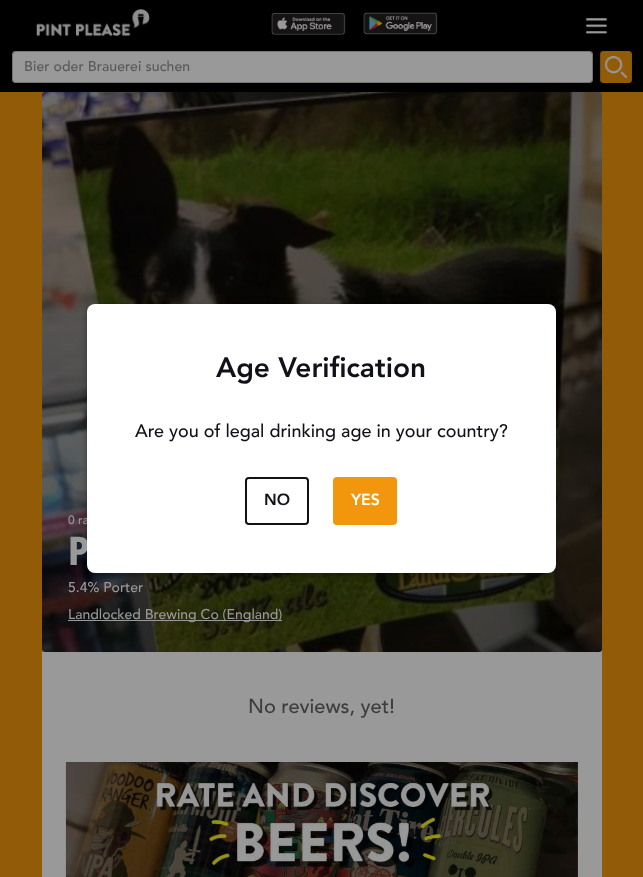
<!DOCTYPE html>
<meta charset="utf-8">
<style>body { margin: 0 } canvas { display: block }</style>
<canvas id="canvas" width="643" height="877"></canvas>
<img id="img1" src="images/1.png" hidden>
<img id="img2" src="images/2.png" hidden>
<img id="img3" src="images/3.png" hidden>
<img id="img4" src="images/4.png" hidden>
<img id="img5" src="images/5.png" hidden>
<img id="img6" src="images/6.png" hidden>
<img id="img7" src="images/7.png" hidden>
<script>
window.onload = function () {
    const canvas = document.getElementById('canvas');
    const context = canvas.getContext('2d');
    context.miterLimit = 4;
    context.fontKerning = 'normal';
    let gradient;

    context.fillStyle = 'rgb(145, 91, 8)';
    context.fillRect(0, 0, 643, 877);
    context.fillStyle = 'rgb(0, 0, 0)';
    context.fillRect(0, 0, 643, 92);
    context.drawImage(document.getElementById('img1'), 36, 9, 114, 28);
    context.drawImage(document.getElementById('img2'), 271, 13, 75, 22);
    context.drawImage(document.getElementById('img3'), 363, 12, 75, 23);
    context.drawImage(document.getElementById('img4'), 585, 18, 23, 16);
    context.fillStyle = 'rgb(153, 153, 153)';
    context.beginPath();
    context.roundRect(12, 51, 581, 32, 4);
    context.fill();
    context.beginPath();
    context.roundRect(12.5, 51.5, 580, 31, 3.5);
    context.strokeStyle = 'rgba(0, 0, 0, 0.24)';
    context.stroke();
    context.drawImage(document.getElementById('img5'), 599, 51, 33, 32);
    context.beginPath();
    context.roundRect(42, 92, 560, 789, 4);
    context.fill();
    context.fillStyle = 'rgb(0, 0, 0)';
    context.beginPath();
    context.roundRect(42, 92, 560, 560, 4);
    context.fill();
    context.drawImage(document.getElementById('img6'), 42, 92, 560, 560);
    gradient = context.createLinearGradient(322, 92, 322, 652);
    gradient.addColorStop(0, 'rgba(0, 0, 0, 0)');
    gradient.addColorStop(1, 'rgba(0, 0, 0, 0.2)');
    context.fillStyle = gradient;
    context.fillRect(42, 165, 560, 487);
    context.fillStyle = 'rgb(153, 153, 153)';
    context.fillRect(68, 620, 214, 1);
    context.drawImage(document.getElementById('img7'), 65, 762, 513, 115);
    context.fillStyle = 'rgba(0, 0, 0, 0.12)';
    context.filter = 'blur(5px)';
    context.beginPath();
    context.roundRect(87, 305, 469, 269, 8);
    context.fill();
    context.filter = 'none';
    context.fillStyle = 'rgba(0, 0, 0, 0.14)';
    context.filter = 'blur(2.5px)';
    context.beginPath();
    context.roundRect(87, 308, 469, 269, 8);
    context.fill();
    context.filter = 'none';
    context.fillStyle = 'rgba(0, 0, 0, 0.2)';
    context.filter = 'blur(2px)';
    context.beginPath();
    context.roundRect(88, 307, 467, 267, 7);
    context.fill();
    context.filter = 'none';
    context.letterSpacing = '0.1px';
    context.font = '500 14px Avenir';
    context.fillStyle = 'rgb(89, 89, 91)';
    context.fillText('Bier oder Brauerei suchen', 24, 71);
    context.letterSpacing = '0px';
    context.font = '500 12px Avenir';
    context.fillStyle = 'rgb(153, 153, 153)';
    context.fillText('0 ra', 68, 524);
    context.font = 'bold 40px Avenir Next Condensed';
    context.fillText('P', 68, 565);
    context.font = '500 14px Avenir';
    context.fillText('5.4% Porter', 68, 592);
    context.fillText('Landlocked Brewing Co (England)', 68, 619);
    context.font = '500 20px Avenir';
    context.fillStyle = 'rgb(61, 61, 64)';
    context.fillText('No reviews, yet!', 248, 713);
    context.fillStyle = 'rgb(255, 255, 255)';
    context.beginPath();
    context.roundRect(87, 304, 469, 269, 8);
    context.fill();
    context.font = '900 28px Avenir';
    context.fillStyle = 'rgb(17, 17, 26)';
    context.fillText('Age Verification', 216, 377);
    context.font = '500 18px Avenir';
    context.fillText('Are you of legal drinking age in your country?', 135, 437);
    context.beginPath();
    context.roundRect(246, 478, 62, 46, 3);
    context.strokeStyle = 'rgb(17, 17, 26)';
    context.lineWidth = 2;
    context.stroke();
    context.fillStyle = 'rgb(255, 255, 255)';
    context.beginPath();
    context.roundRect(247, 479, 60, 44, 4);
    context.fill();
    context.font = '900 16px Avenir';
    context.fillStyle = 'rgb(17, 17, 26)';
    context.fillText('NO', 264, 505);
    context.fillStyle = 'rgb(242, 151, 13)';
    context.beginPath();
    context.roundRect(333, 477, 64, 48, 4);
    context.fill();
    context.fillStyle = 'rgb(255, 255, 255)';
    context.fillText('YES', 351, 505);
};
</script>
